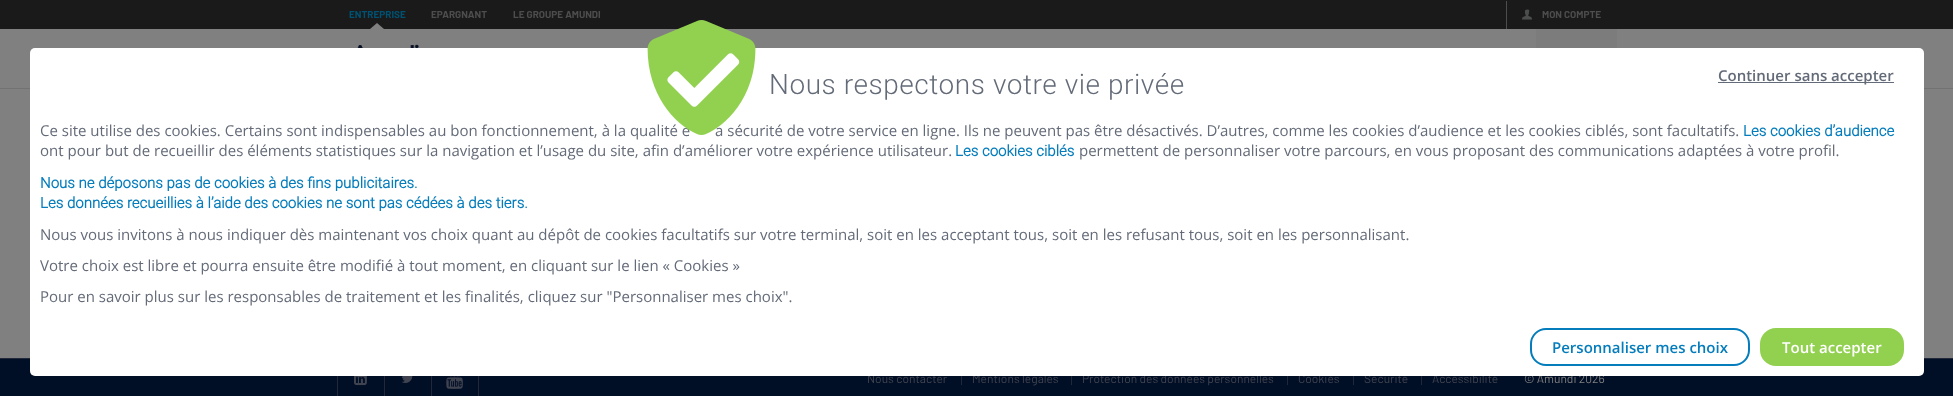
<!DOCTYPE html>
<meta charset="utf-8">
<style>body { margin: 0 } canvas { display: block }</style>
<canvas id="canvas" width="1953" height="396"></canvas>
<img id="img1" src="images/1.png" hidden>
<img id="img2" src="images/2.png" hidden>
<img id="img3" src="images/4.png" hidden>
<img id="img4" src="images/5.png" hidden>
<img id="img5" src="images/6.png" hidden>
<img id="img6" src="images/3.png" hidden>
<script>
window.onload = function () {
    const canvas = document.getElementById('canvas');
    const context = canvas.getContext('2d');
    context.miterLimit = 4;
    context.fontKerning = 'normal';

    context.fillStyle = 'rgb(128, 128, 128)';
    context.fillRect(0, 0, 1953, 396);
    context.fillStyle = 'rgb(26, 26, 26)';
    context.fillRect(0, 0, 1953, 29);
    context.fillStyle = 'rgb(128, 128, 128)';
    context.beginPath();
    context.moveTo(384, 29);
    context.lineTo(370, 29);
    context.lineTo(377, 23);
    context.closePath();
    context.fill();
    context.drawImage(document.getElementById('img1'), 1522, 9, 10, 11);
    context.fillStyle = 'rgb(77, 77, 77)';
    context.fillRect(1506, 1, 1, 28);
    context.drawImage(document.getElementById('img2'), 357, 44, 62, 4);
    context.fillStyle = 'rgb(124, 124, 124)';
    context.fillRect(1536, 29, 81, 19);
    context.fillStyle = 'rgb(114, 114, 114)';
    context.fillRect(0, 88, 1953, 1);
    context.fillStyle = 'rgb(0, 14, 38)';
    context.fillRect(0, 359, 1953, 37);
    context.fillStyle = 'rgb(33, 40, 58)';
    context.fillRect(0, 358, 1953, 1);
    context.fillRect(478, 376, 1, 20);
    context.fillRect(337, 376, 1, 20);
    context.drawImage(document.getElementById('img3'), 354, 376, 13, 10);
    context.fillRect(384, 376, 1, 20);
    context.drawImage(document.getElementById('img4'), 401, 376, 12, 7);
    context.fillRect(431, 376, 1, 20);
    context.drawImage(document.getElementById('img5'), 446, 376, 17, 13);
    context.fillRect(961, 371, 1, 14);
    context.fillRect(1071, 371, 1, 14);
    context.fillRect(1287, 371, 1, 14);
    context.fillRect(1353, 371, 1, 14);
    context.fillRect(1421, 371, 1, 14);
    context.font = 'bold 10px Barlow';
    context.fillStyle = 'rgb(0, 82, 114)';
    context.fillText('ENTREPRISE', 349, 18);
    context.fillStyle = 'rgb(77, 77, 77)';
    context.fillText('EPARGNANT', 431, 18);
    context.fillText('LE GROUPE AMUNDI', 513, 18);
    context.fillText('MON COMPTE', 1542, 18);
    context.font = '12px Barlow';
    context.fillStyle = 'rgb(65, 69, 80)';
    context.fillText('Nous contacter', 867, 383);
    context.fillText('Mentions légales', 972, 383);
    context.fillText('Protection des données personnelles', 1082, 383);
    context.fillText('Cookies', 1298, 383);
    context.fillText('Sécurité', 1364, 383);
    context.fillText('Accessibilité', 1432, 383);
    context.fillStyle = 'rgb(128, 128, 128)';
    context.fillText('© Amundi 2026', 1524, 383);
    context.fillStyle = 'rgb(255, 255, 255)';
    context.beginPath();
    context.roundRect(30, 48, 1894, 328, 5);
    context.fill();
    context.fillStyle = 'rgb(100, 107, 120)';
    context.fillRect(1718, 82, 176, 1);
    context.font = '600 15px Open Sans';
    context.fillText('Continuer sans accepter', 1718, 81);
    context.font = '15px Open Sans';
    context.fillText('a sécurité de votre service en ligne. Ils ne peuvent pas être désactivés. D’autres, comme les cookies d’audience et les cookies ciblés, sont facultatifs.', 715, 136);
    context.fillText('Ce site utilise des cookies. Certains sont indispensables au bon fonctionnement, à la qualité e', 40, 136);
    context.drawImage(document.getElementById('img6'), 647, 20, 109, 115);
    context.fillStyle = 'rgb(146, 208, 80)';
    context.beginPath();
    context.roundRect(1761, 329, 142, 36, 15);
    context.fill();
    context.strokeStyle = 'rgb(146, 208, 80)';
    context.lineWidth = 2;
    context.stroke();
    context.font = '600 15px Open Sans';
    context.fillStyle = 'rgb(255, 255, 255)';
    context.fillText('Tout accepter', 1782, 353);
    context.beginPath();
    context.roundRect(1531, 329, 218, 36, 15);
    context.strokeStyle = 'rgb(5, 125, 188)';
    context.stroke();
    context.fillStyle = 'rgb(5, 125, 188)';
    context.fillText('Personnaliser mes choix', 1552, 353);
    context.font = '15px Open Sans';
    context.fillStyle = 'rgb(100, 107, 120)';
    context.fillText('Pour en savoir plus sur les responsables de traitement et les finalités, cliquez sur "Personnaliser mes choix".', 40, 302);
    context.fillText('Votre choix est libre et pourra ensuite être modifié à tout moment, en cliquant sur le lien « Cookies »', 40, 271);
    context.fillText('Nous vous invitons à nous indiquer dès maintenant vos choix quant au dépôt de cookies facultatifs sur votre terminal, soit en les acceptant tous, soit en les refusant tous, soit en les personnalisant.', 40, 240);
    context.font = 'bold 15px Roboto';
    context.fillStyle = 'rgb(5, 125, 188)';
    context.fillText('Les données recueillies à l’aide des cookies ne sont pas cédées à des tiers.', 40, 208);
    context.fillText('Nous ne déposons pas de cookies à des fins publicitaires.', 40, 188);
    context.font = '15px Open Sans';
    context.fillStyle = 'rgb(100, 107, 120)';
    context.fillText('permettent de personnaliser votre parcours, en vous proposant des communications adaptées à votre profil.', 1079, 156);
    context.font = 'bold 15px Roboto';
    context.fillStyle = 'rgb(5, 125, 188)';
    context.fillText('Les cookies ciblés', 955, 156);
    context.font = '15px Open Sans';
    context.fillStyle = 'rgb(100, 107, 120)';
    context.fillText('ont pour but de recueillir des éléments statistiques sur la navigation et l’usage du site, afin d’améliorer votre expérience utilisateur.', 40, 156);
    context.font = 'bold 15px Roboto';
    context.fillStyle = 'rgb(5, 125, 188)';
    context.fillText('Les cookies d’audience', 1743, 136);
    context.letterSpacing = '0.55px';
    context.font = '300 28px Roboto';
    context.fillStyle = 'rgb(100, 107, 120)';
    context.fillText('Nous respectons votre vie privée', 769, 94);
};
</script>
